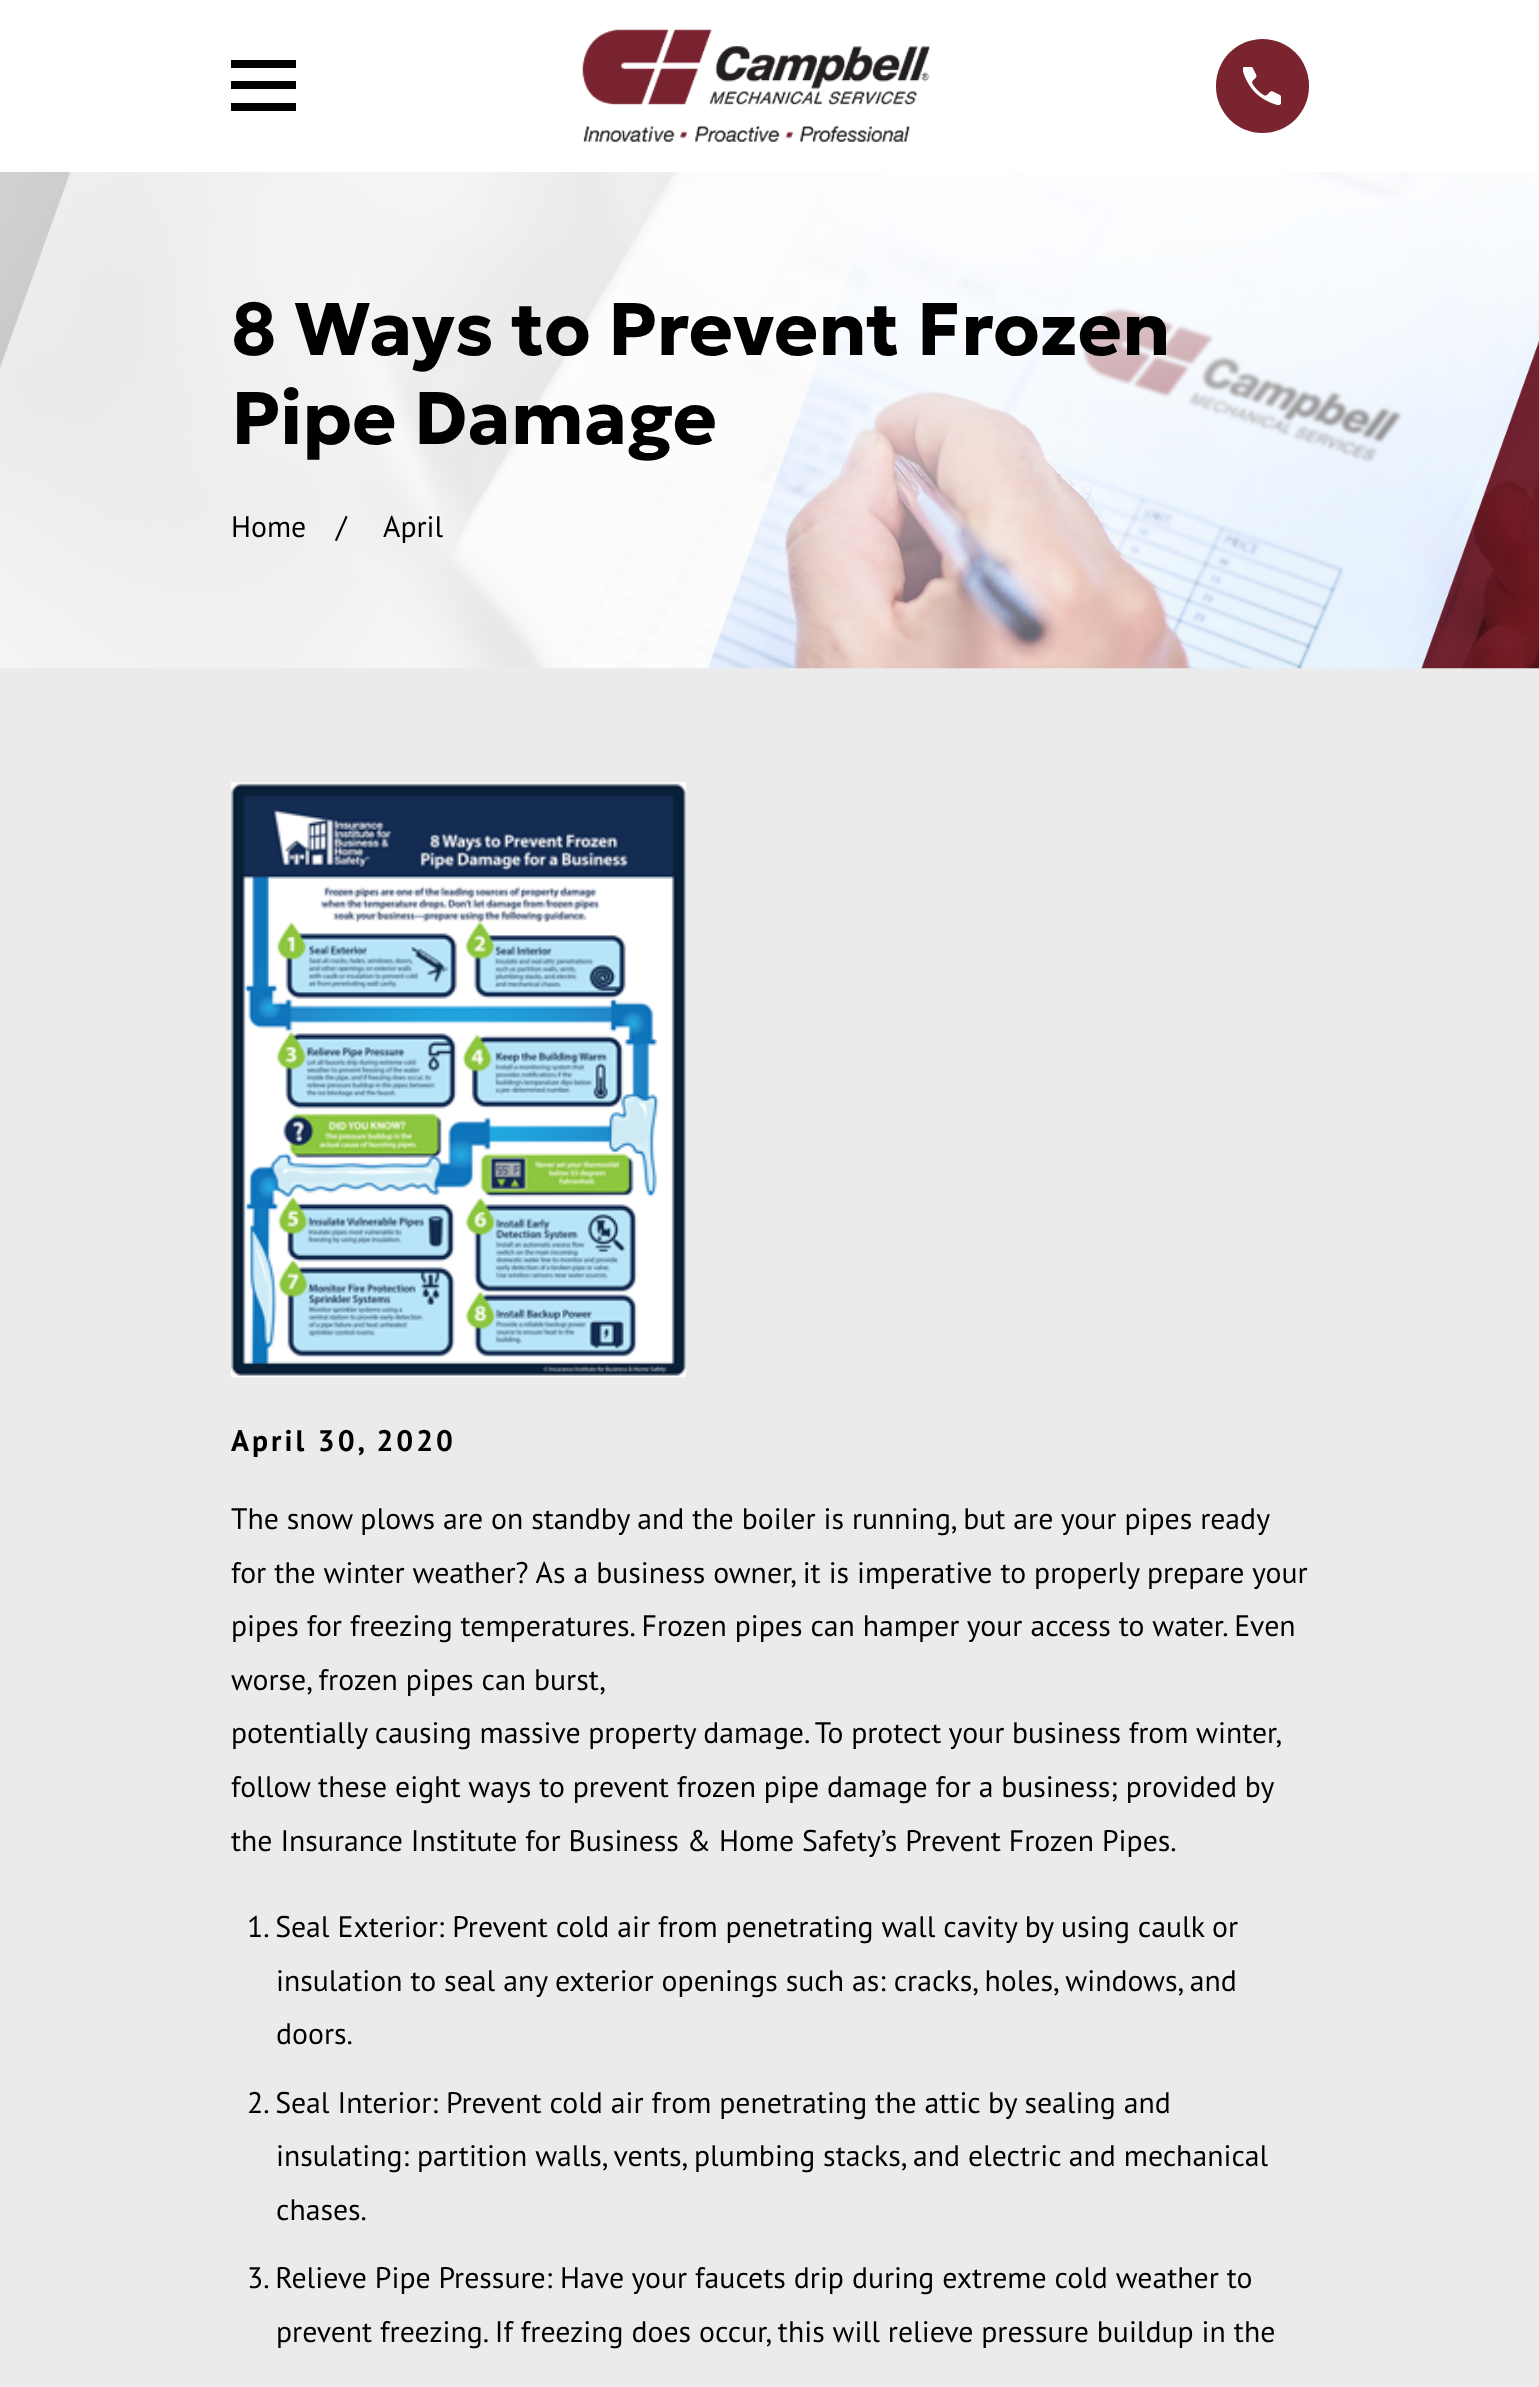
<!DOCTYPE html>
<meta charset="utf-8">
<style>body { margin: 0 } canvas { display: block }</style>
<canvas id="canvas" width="1539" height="2387"></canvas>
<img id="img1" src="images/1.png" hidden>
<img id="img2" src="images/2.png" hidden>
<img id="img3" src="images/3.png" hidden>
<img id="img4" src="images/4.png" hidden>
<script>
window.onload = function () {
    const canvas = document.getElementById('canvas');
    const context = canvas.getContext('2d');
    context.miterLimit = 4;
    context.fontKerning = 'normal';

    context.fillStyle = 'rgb(235, 235, 235)';
    context.fillRect(0, 0, 1539, 2387);
    context.fillStyle = 'rgb(255, 255, 255)';
    context.fillRect(0, 0, 1539, 172);
    context.fillStyle = 'rgb(0, 0, 0)';
    context.beginPath();
    context.moveTo(231, 60);
    context.lineTo(231, 68);
    context.lineTo(296, 68);
    context.lineTo(296, 60);
    context.closePath();
    context.moveTo(231, 81);
    context.lineTo(231, 89);
    context.lineTo(296, 89);
    context.lineTo(296, 81);
    context.closePath();
    context.moveTo(231, 103);
    context.lineTo(231, 111);
    context.lineTo(296, 111);
    context.lineTo(296, 103);
    context.closePath();
    context.fill();
    context.drawImage(document.getElementById('img1'), 582, 29, 348, 113);
    context.fillStyle = 'rgb(121, 36, 47)';
    context.beginPath();
    context.roundRect(1216, 39, 93, 94, 46.5);
    context.fill();
    context.drawImage(document.getElementById('img2'), 1243, 67, 38, 38);
    context.drawImage(document.getElementById('img3'), 0, 172, 1539, 497);
    context.drawImage(document.getElementById('img4'), 231, 782, 455, 596);
    context.font = 'bold 74.4px Geologica';
    context.fillStyle = 'rgb(0, 0, 0)';
    context.fillText('8 Ways to Prevent Frozen', 231, 355);
    context.fillText('Pipe Damage', 231, 444);
    context.font = '29.75px PT Sans';
    context.fillText('Home', 231, 537);
    context.fillText('/', 336, 537);
    context.fillText('April', 383, 537);
    context.letterSpacing = '3px';
    context.font = 'bold 29.75px PT Sans';
    context.fillText('April 30, 2020', 231, 1451);
    context.letterSpacing = '0px';
    context.font = '29.75px PT Sans';
    context.fillText('The snow plows are on standby and the boiler is running, but are your pipes ready', 231, 1529);
    context.fillText('for the winter weather? As a business owner, it is imperative to properly prepare your', 231, 1583);
    context.fillText('pipes for freezing temperatures. Frozen pipes can hamper your access to water. Even', 231, 1636);
    context.fillText('worse, frozen pipes can burst,', 231, 1690);
    context.wordSpacing = '-0.25px';
    context.fillText('potentially causing massive property damage. To protect your business from winter,', 231, 1743);
    context.wordSpacing = '-0.1px';
    context.fillText('follow these eight ways to prevent frozen pipe damage for a business; provided by', 231, 1797);
    context.wordSpacing = '0px';
    context.fillText('the Insurance Institute for Business & Home Safety’s Prevent Frozen Pipes.', 231, 1851);
    context.fillText('1. Seal Exterior: Prevent cold air from penetrating wall cavity by using caulk or', 247, 1937);
    context.fillText('insulation to seal any exterior openings such as: cracks, holes, windows, and', 276, 1991);
    context.fillText('doors.', 276, 2044);
    context.fillText('2. Seal Interior: Prevent cold air from penetrating the attic by sealing and', 247, 2113);
    context.fillText('insulating: partition walls, vents, plumbing stacks, and electric and mechanical', 276, 2166);
    context.fillText('chases.', 276, 2220);
    context.fillText('3. Relieve Pipe Pressure: Have your faucets drip during extreme cold weather to', 247, 2288);
    context.fillText('prevent freezing. If freezing does occur, this will relieve pressure buildup in the', 276, 2342);
};
</script>
